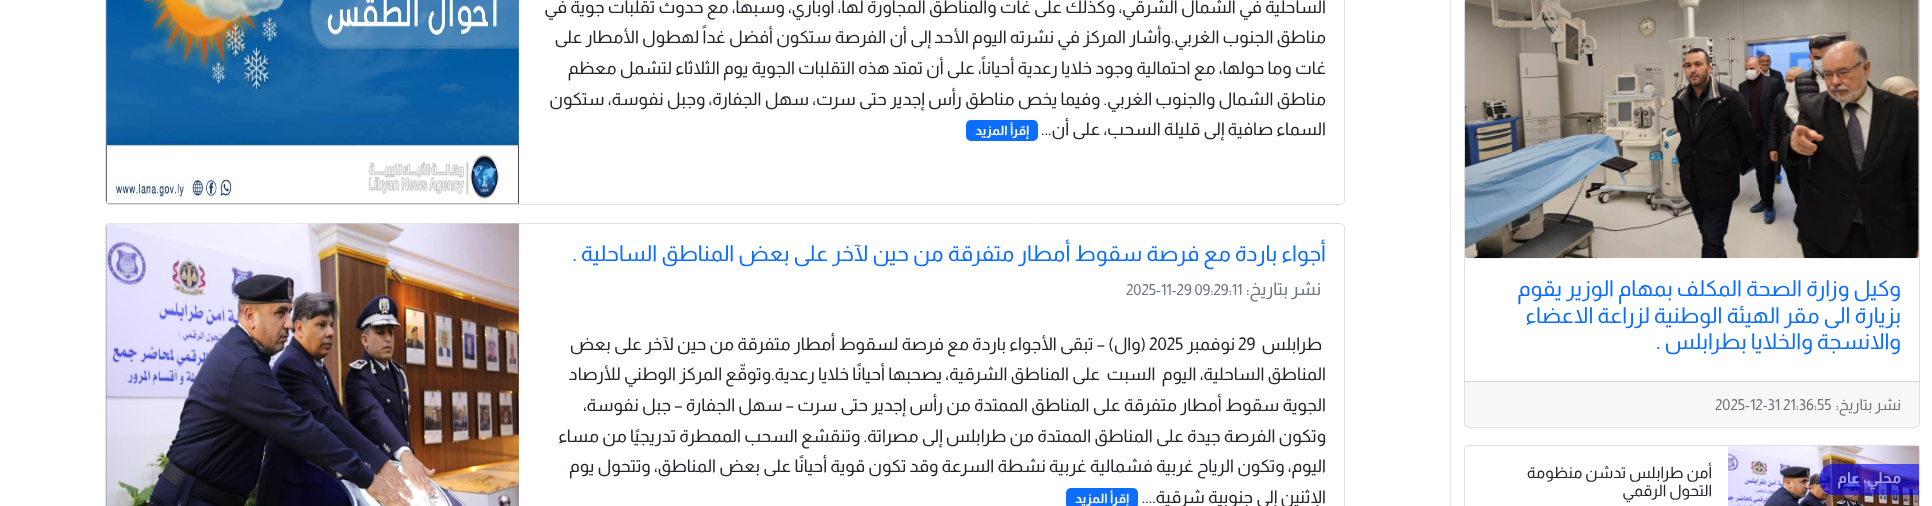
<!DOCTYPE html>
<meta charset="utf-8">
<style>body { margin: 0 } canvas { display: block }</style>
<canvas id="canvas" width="1932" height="506"></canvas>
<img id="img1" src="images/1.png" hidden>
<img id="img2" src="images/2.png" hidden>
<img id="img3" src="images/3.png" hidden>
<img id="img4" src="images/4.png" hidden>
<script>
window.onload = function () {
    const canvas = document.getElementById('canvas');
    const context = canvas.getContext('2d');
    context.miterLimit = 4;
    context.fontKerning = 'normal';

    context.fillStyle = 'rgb(255, 255, 255)';
    context.fillRect(0, 0, 1932, 506);
    context.fillStyle = 'rgb(222, 226, 230)';
    context.fillRect(1450, 0, 1, 506);
    context.beginPath();
    context.roundRect(1464.5, -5.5, 455, 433, 4.5);
    context.strokeStyle = 'rgb(223, 223, 223)';
    context.stroke();
    context.drawImage(document.getElementById('img1'), 1465, 0, 454, 259);
    context.fillStyle = 'rgba(0, 0, 0, 0.03)';
    context.fillRect(1465, 382, 454, 44);
    context.fillStyle = 'rgb(216, 216, 216)';
    context.fillRect(1465, 381, 454, 1);
    context.beginPath();
    context.roundRect(1464.5, 445.5, 455, 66, 4.5);
    context.stroke();
    context.drawImage(document.getElementById('img2'), 1728, 446, 191, 60);
    context.fillStyle = 'rgba(0, 0, 255, 0.6)';
    context.beginPath();
    context.roundRect(1820, 464, 99, 31, [13, 0, 0, 13]);
    context.fill();
    context.beginPath();
    context.roundRect(105.5, -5.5, 1239, 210, 4.5);
    context.stroke();
    context.fillStyle = 'rgb(13, 110, 253)';
    context.beginPath();
    context.roundRect(966, 120, 72, 21, 5);
    context.fill();
    context.fillStyle = 'rgb(153, 153, 153)';
    context.beginPath();
    context.moveTo(109, -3);
    context.lineTo(519, -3);
    context.lineTo(519, 204);
    context.lineTo(109, 204);
    context.bezierCurveTo(107.5, 204, 106, 202.5, 106, 201);
    context.lineTo(106, 0);
    context.bezierCurveTo(106, -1.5, 107.5, -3, 109, -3);
    context.closePath();
    context.fill();
    context.drawImage(document.getElementById('img3'), 106, 0, 413, 204);
    context.beginPath();
    context.roundRect(105.5, 223.5, 1239, 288, 4.5);
    context.stroke();
    context.fillStyle = 'rgb(13, 110, 253)';
    context.beginPath();
    context.roundRect(1066, 488, 72, 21, 5);
    context.fill();
    context.fillStyle = 'rgb(153, 153, 153)';
    context.beginPath();
    context.moveTo(109, 224);
    context.lineTo(519, 224);
    context.lineTo(519, 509);
    context.lineTo(109, 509);
    context.bezierCurveTo(107.5, 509, 106, 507.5, 106, 506);
    context.lineTo(106, 227);
    context.bezierCurveTo(106, 225.5, 107.5, 224, 109, 224);
    context.closePath();
    context.fill();
    context.drawImage(document.getElementById('img4'), 106, 223, 413, 283);
    context.direction = 'rtl';
    context.font = '21.9px Almarai';
    context.fillStyle = 'rgb(13, 110, 253)';
    context.fillText('وكيل وزارة الصحة المكلف بمهام', 1901, 296);
    context.fillText('الوزير', 1614, 296);
    context.fillText('يقوم', 1562, 296);
    context.fillText('بزيارة الى مقر الهيئة الوطنية', 1901, 323);
    context.fillText('لزراعة الاعضاء', 1650, 323);
    context.fillText('والانسجة والخلايا بطرابلس', 1901, 349);
    context.direction = 'ltr';
    context.fillText('.', 1656, 349);
    context.direction = 'rtl';
    context.font = '15.25px Almarai';
    context.fillStyle = 'rgb(108, 117, 125)';
    context.fillText('نشر بتاريخ:', 1901, 410);
    context.direction = 'ltr';
    context.fillText('2025-12-31 21:36:55', 1715, 410);
    context.direction = 'rtl';
    context.font = 'bold 15px Almarai';
    context.fillStyle = 'rgb(171, 166, 224)';
    context.fillText('محلي، عام', 1901, 483);
    context.font = '15.75px Almarai';
    context.fillStyle = 'rgb(33, 37, 41)';
    context.fillText('أمن طرابلس تدشن منظومة', 1712, 478);
    context.fillText('التحول الرقمي', 1712, 496);
    context.font = '17.5px Almarai';
    context.fillText('الساحلية في الشمال الشرقي، وكذلك على غات والمناطق المجاورة لها، أوباري، وسبها، مع حدوث تقلبات جوية في', 1326, 13);
    context.fillText('مناطق الجنوب الغربي.وأشار المركز في نشرته اليوم الأحد إلى أن الفرصة ستكون أفضل غداً لهطول الأمطار على', 1326, 43);
    context.fillText('غات وما حولها، مع احتمالية وجود خلايا رعدية أحياناً، على أن تمتد هذه التقلبات الجوية يوم الثلاثاء لتشمل معظم', 1326, 74);
    context.fillText('مناطق الشمال والجنوب الغربي. وفيما يخص مناطق رأس إجدير حتى سرت، سهل الجفارة، وجبل نفوسة، ستكون', 1326, 105);
    context.fillText('السماء صافية إلى قليلة السحب، على أن...', 1326, 135);
    context.font = 'bold 13px Almarai';
    context.fillStyle = 'rgb(255, 255, 255)';
    context.fillText('إقرأ المزيد', 1029, 135);
    context.font = '21.9px Almarai';
    context.fillStyle = 'rgb(13, 110, 253)';
    context.fillText('أجواء باردة مع فرصة سقوط أمطار متفرقة من حين لآخر على بعض المناطق الساحلية .', 1326, 261);
    context.font = '17.5px Almarai';
    context.fillStyle = 'rgb(108, 117, 125)';
    context.fillText('نشر بتاريخ:', 1321, 295);
    context.direction = 'ltr';
    context.font = '15.25px Almarai';
    context.fillText('2025-11-29 09:29:11', 1126, 295);
    context.direction = 'rtl';
    context.font = '17.5px Almarai';
    context.fillStyle = 'rgb(33, 37, 41)';
    context.fillText('طرابلس', 1322, 350);
    context.direction = 'ltr';
    context.fillText('29', 1238, 350);
    context.direction = 'rtl';
    context.fillText('نوفمبر', 1235, 350);
    context.direction = 'ltr';
    context.fillText('2025', 1149, 350);
    context.direction = 'rtl';
    context.fillText('(وال) – تبقى الأجواء باردة مع فرصة لسقوط أمطار متفرقة من حين لآخر على بعض', 1146, 350);
    context.fillText('المناطق الساحلية، اليوم  السبت  على المناطق الشرقية، يصحبها أحيانًا خلايا رعدية.وتوقّع المركز الوطني للأرصاد', 1326, 380);
    context.fillText('الجوية سقوط أمطار متفرقة على المناطق الممتدة من رأس إجدير حتى سرت – سهل الجفارة – جبل نفوسة،', 1326, 411);
    context.fillText('وتكون الفرصة جيدة على المناطق الممتدة من طرابلس إلى مصراتة. وتنقشع السحب الممطرة تدريجيًا من مساء', 1326, 442);
    context.fillText('اليوم، وتكون الرياح غربية فشمالية غربية نشطة السرعة وقد تكون قوية أحيانًا على بعض المناطق، وتتحول يوم', 1326, 472);
    context.fillText('الإثنين إلى جنوبية شرقية....', 1326, 503);
    context.font = 'bold 13px Almarai';
    context.fillStyle = 'rgb(255, 255, 255)';
    context.fillText('إقرأ المزيد', 1129, 503);
};
</script>
